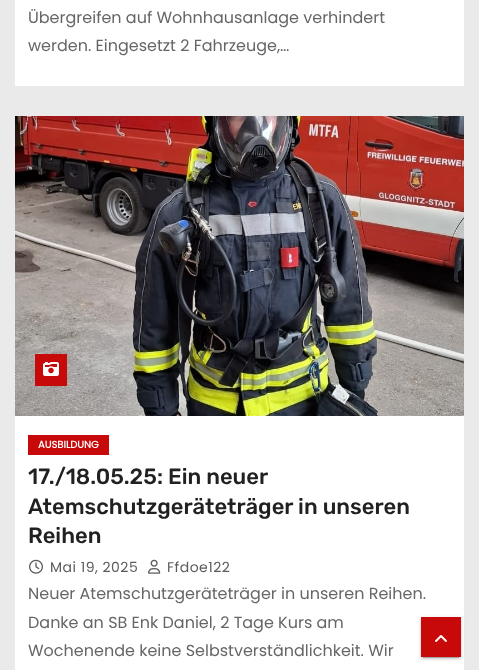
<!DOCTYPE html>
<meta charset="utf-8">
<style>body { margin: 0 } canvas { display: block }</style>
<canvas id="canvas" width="479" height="670"></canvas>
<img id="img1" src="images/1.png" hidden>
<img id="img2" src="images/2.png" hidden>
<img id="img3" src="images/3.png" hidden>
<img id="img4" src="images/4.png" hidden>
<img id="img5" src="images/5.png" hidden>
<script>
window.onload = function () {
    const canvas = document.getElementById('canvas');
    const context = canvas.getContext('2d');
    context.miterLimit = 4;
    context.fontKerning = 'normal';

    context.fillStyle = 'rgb(234, 234, 234)';
    context.fillRect(0, 0, 479, 670);
    context.fillStyle = 'rgb(255, 255, 255)';
    context.fillRect(15, 0, 449, 86);
    context.drawImage(document.getElementById('img1'), 15, 116, 449, 300);
    context.fillStyle = 'rgb(199, 9, 9)';
    context.fillRect(35, 354, 32, 32);
    context.drawImage(document.getElementById('img2'), 43, 362, 16, 14);
    context.fillStyle = 'rgb(255, 255, 255)';
    context.fillRect(15, 416, 449, 254);
    context.fillStyle = 'rgb(199, 9, 9)';
    context.fillRect(28, 435, 81, 20);
    context.drawImage(document.getElementById('img3'), 29, 559, 14, 15);
    context.drawImage(document.getElementById('img4'), 148, 559, 13, 15);
    context.fillStyle = 'rgba(0, 0, 0, 0.12)';
    context.filter = 'blur(2.5px)';
    context.beginPath();
    context.rect(421, 618, 40, 40);
    context.fill();
    context.filter = 'none';
    context.fillStyle = 'rgba(0, 0, 0, 0.2)';
    context.filter = 'blur(0.5px)';
    context.beginPath();
    context.rect(423, 622, 36, 36);
    context.fill();
    context.filter = 'none';
    context.fillStyle = 'rgba(0, 0, 0, 0.14)';
    context.filter = 'blur(1px)';
    context.beginPath();
    context.rect(421, 619, 40, 40);
    context.fill();
    context.filter = 'none';
    context.fillStyle = 'rgb(199, 9, 9)';
    context.fillRect(421, 617, 40, 40);
    context.drawImage(document.getElementById('img5'), 435, 635, 12, 7);
    context.font = '16px Poppins';
    context.fillStyle = 'rgb(102, 102, 102)';
    context.fillText('Übergreifen auf Wohnhausanlage verhindert', 28, 23);
    context.fillText('werden. Eingesetzt 2 Fahrzeuge,…', 28, 51);
    context.font = 'bold 10px Poppins';
    context.fillStyle = 'rgb(255, 255, 255)';
    context.fillText('AUSBILDUNG', 38, 448);
    context.font = '500 22px Rubik';
    context.fillStyle = 'rgb(33, 33, 33)';
    context.fillText('17./18.05.25: Ein neuer', 28, 484);
    context.fillText('Atemschutzgeräteträger in unseren', 28, 514);
    context.fillText('Reihen', 28, 543);
    context.letterSpacing = '0.5px';
    context.font = '14px Poppins';
    context.fillStyle = 'rgb(92, 92, 92)';
    context.fillText('Mai 19, 2025', 50, 572);
    context.fillText('Ffdoe122', 167, 572);
    context.letterSpacing = '0px';
    context.font = '16px Poppins';
    context.fillStyle = 'rgb(102, 102, 102)';
    context.fillText('Neuer Atemschutzgeräteträger in unseren Reihen.', 28, 599);
    context.fillText('Danke an SB Enk Daniel, 2 Tage Kurs am', 28, 628);
    context.fillText('Wochenende keine Selbstverständlichkeit. Wir', 28, 656);
};
</script>
